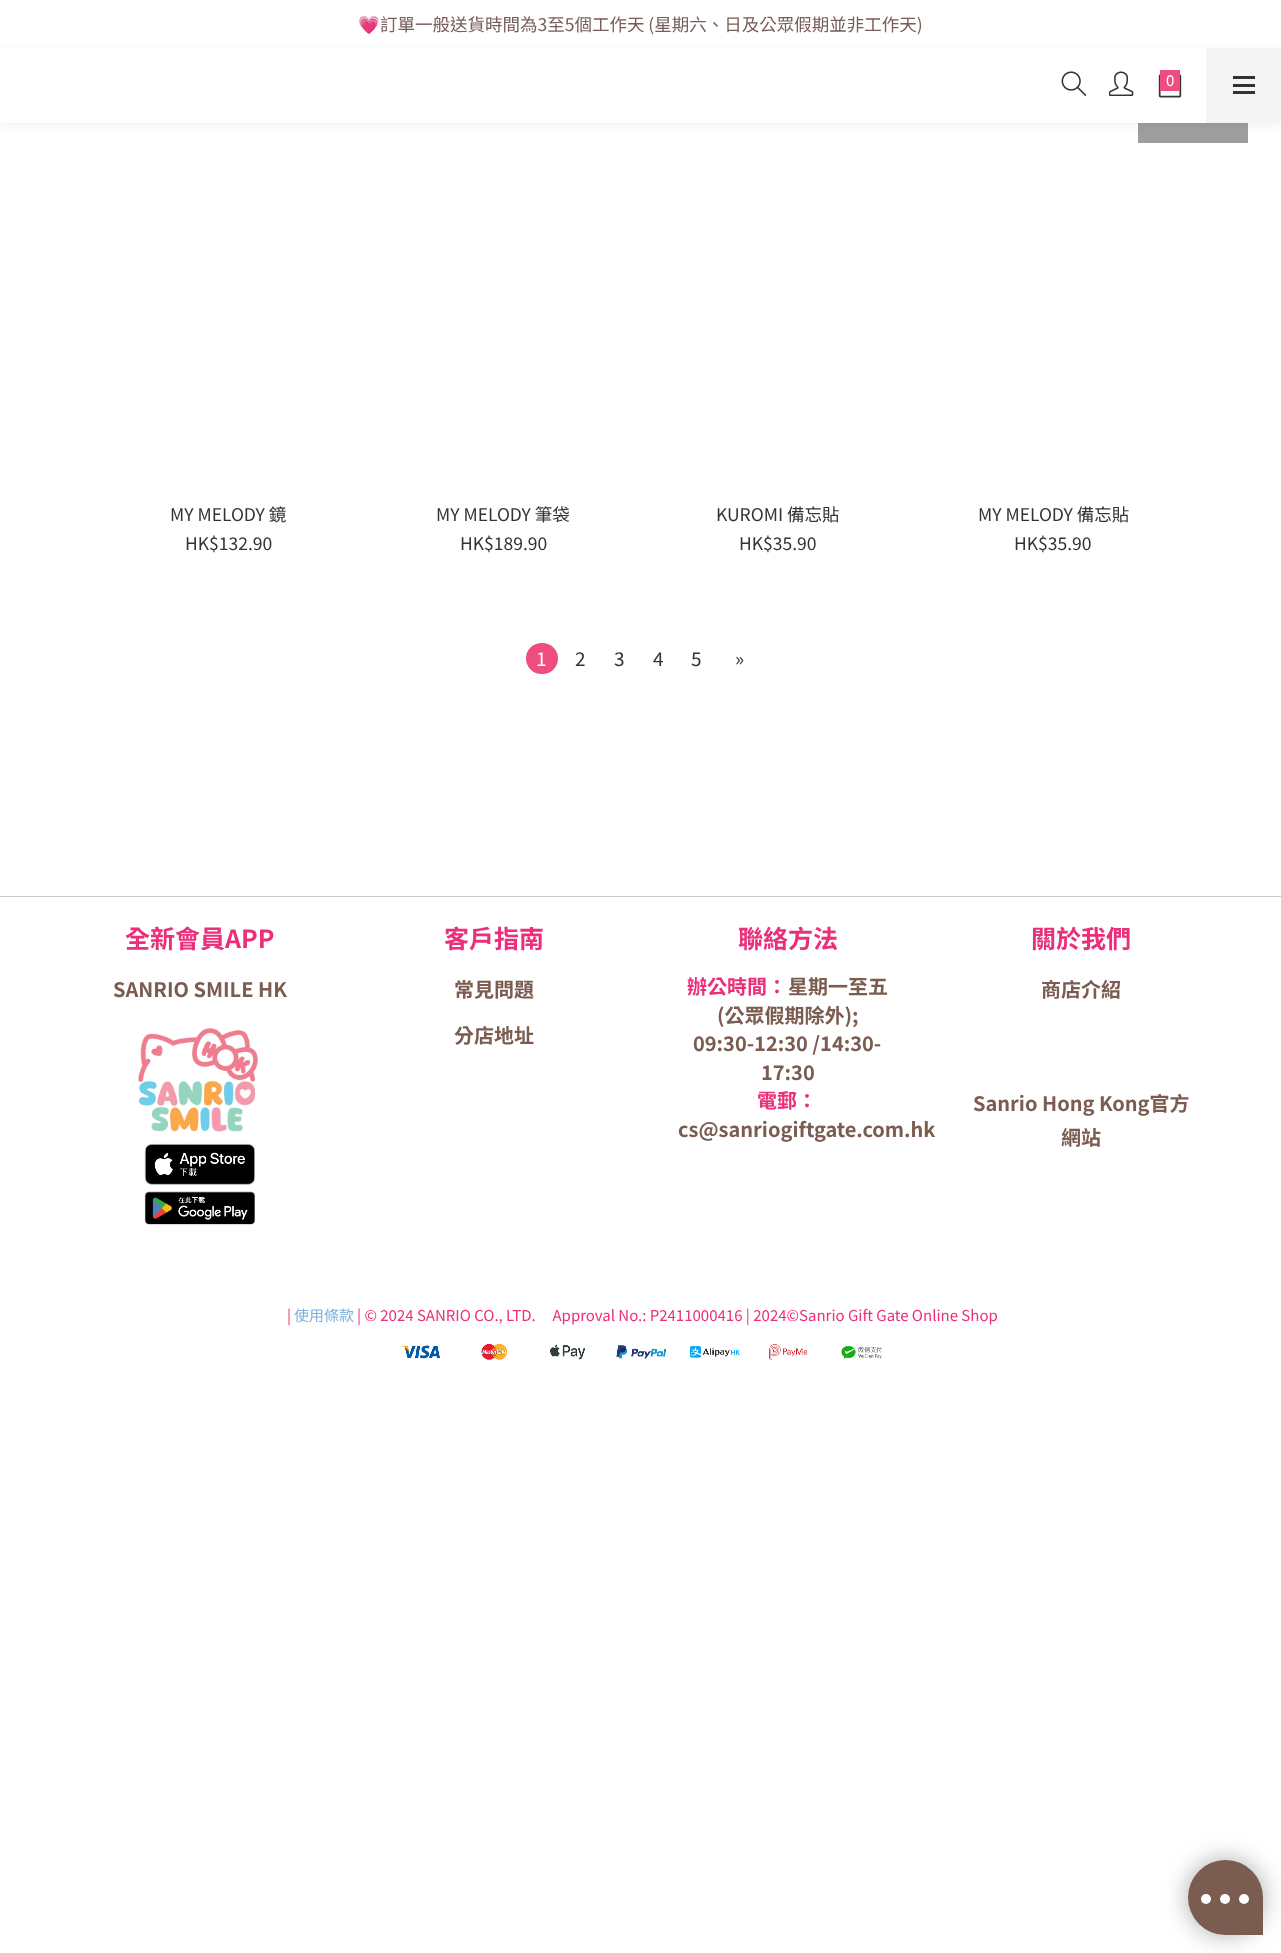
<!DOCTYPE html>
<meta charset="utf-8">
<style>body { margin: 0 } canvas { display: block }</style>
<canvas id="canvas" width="1281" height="1953"></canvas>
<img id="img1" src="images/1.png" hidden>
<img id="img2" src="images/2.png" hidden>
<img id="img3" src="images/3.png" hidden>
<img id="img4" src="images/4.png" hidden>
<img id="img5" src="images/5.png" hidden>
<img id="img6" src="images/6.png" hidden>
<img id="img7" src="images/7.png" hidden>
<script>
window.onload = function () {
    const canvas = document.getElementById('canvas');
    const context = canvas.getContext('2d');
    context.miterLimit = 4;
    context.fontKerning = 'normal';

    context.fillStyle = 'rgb(255, 255, 255)';
    context.fillRect(0, 0, 1281, 1953);
    context.fillStyle = 'rgb(158, 158, 158)';
    context.fillRect(1138, 123, 110, 20);
    context.fillStyle = 'rgba(0, 0, 0, 0.06)';
    context.filter = 'blur(4px)';
    context.beginPath();
    context.rect(0, 50, 1281, 75);
    context.fill();
    context.filter = 'none';
    context.fillStyle = 'rgb(255, 255, 255)';
    context.fillRect(0, 48, 1206, 75);
    context.drawImage(document.getElementById('img1'), 1061, 71, 25, 25);
    context.drawImage(document.getElementById('img2'), 1109, 71, 25, 25);
    context.drawImage(document.getElementById('img3'), 1158, 74, 24, 24);
    context.fillStyle = 'rgb(239, 76, 127)';
    context.fillRect(1160, 70, 20, 21);
    context.fillStyle = 'rgb(245, 245, 245)';
    context.fillRect(1206, 48, 75, 75);
    context.fillStyle = 'rgb(51, 51, 51)';
    context.fillRect(1233, 84, 22, 3);
    context.fillRect(1233, 76, 22, 3);
    context.fillRect(1233, 91, 22, 3);
    context.fillStyle = 'rgb(239, 76, 127)';
    context.beginPath();
    context.roundRect(526, 643, 32, 31, 15.5);
    context.fill();
    context.fillStyle = 'rgb(204, 204, 204)';
    context.fillRect(0, 896, 1281, 1);
    context.drawImage(document.getElementById('img4'), 138, 1028, 120, 104);
    context.drawImage(document.getElementById('img5'), 144, 1143, 111, 42);
    context.drawImage(document.getElementById('img6'), 144, 1191, 111, 34);
    context.drawImage(document.getElementById('img7'), 401, 1342, 482, 19);
    context.fillStyle = 'rgba(119, 119, 119, 0.64)';
    context.filter = 'blur(12.5px)';
    context.beginPath();
    context.roundRect(1188, 1860, 75, 75, 37.5);
    context.fill();
    context.filter = 'none';
    context.fillStyle = 'rgb(122, 92, 80)';
    context.beginPath();
    context.roundRect(1188, 1860, 75, 75, [37.5, 37.5, 0, 37.5]);
    context.fill();
    context.fillStyle = 'rgb(255, 255, 255)';
    context.beginPath();
    context.arc(1206, 1899, 5, 0, 2 * Math.PI);
    context.fill();
    context.beginPath();
    context.arc(1225, 1899, 5, 0, 2 * Math.PI);
    context.fill();
    context.beginPath();
    context.arc(1244, 1899, 5, 0, 2 * Math.PI);
    context.fill();
    context.font = '17.5px Noto Color Emoji';
    context.fillStyle = 'rgb(118, 93, 87)';
    context.fillText('💗', 358, 31);
    context.font = '17.5px Noto Sans TC';
    context.fillText('訂單一般送貨時間為3至5個工作天 (星期六、日及公眾假期並非工作天)', 380, 31);
    context.font = '15px Noto Sans TC';
    context.fillStyle = 'rgb(255, 255, 255)';
    context.fillText('0', 1166, 86);
    context.font = '17.5px Noto Sans TC';
    context.fillStyle = 'rgb(51, 51, 51)';
    context.fillText('MY MELODY 鏡', 170, 521);
    context.fillText('HK$132.90', 185, 550);
    context.fillText('MY MELODY 筆袋', 436, 521);
    context.fillText('HK$189.90', 460, 550);
    context.fillText('KUROMI 備忘貼', 716, 521);
    context.fillText('HK$35.90', 739, 550);
    context.fillText('MY MELODY 備忘貼', 978, 521);
    context.fillText('HK$35.90', 1014, 550);
    context.font = '19px Noto Sans TC';
    context.fillStyle = 'rgb(255, 255, 255)';
    context.fillText('1', 536, 666);
    context.fillStyle = 'rgb(51, 51, 51)';
    context.fillText('2', 575, 666);
    context.fillText('3', 614, 666);
    context.fillText('4', 653, 666);
    context.fillText('5', 691, 666);
    context.fillText('»', 735, 666);
    context.font = 'bold 25px Noto Sans TC';
    context.fillStyle = 'rgb(236, 47, 122)';
    context.fillText('全新會員APP', 125, 948);
    context.font = 'bold 20px Noto Sans TC';
    context.fillStyle = 'rgb(122, 92, 80)';
    context.fillText('SANRIO SMILE HK', 113, 997);
    context.font = 'bold 25px Noto Sans TC';
    context.fillStyle = 'rgb(236, 47, 122)';
    context.fillText('客戶指南', 444, 948);
    context.font = 'bold 20px Noto Sans TC';
    context.fillStyle = 'rgb(122, 92, 80)';
    context.fillText('常見問題', 454, 997);
    context.fillText('分店地址', 454, 1043);
    context.font = 'bold 25px Noto Sans TC';
    context.fillStyle = 'rgb(236, 47, 122)';
    context.fillText('聯絡方法', 738, 948);
    context.font = 'bold 20px Noto Sans TC';
    context.fillText('辦公時間：', 687, 994);
    context.fillStyle = 'rgb(122, 92, 80)';
    context.fillText('星期一至五', 788, 994);
    context.fillText('(公眾假期除外);', 717, 1023);
    context.fillText('09:30-12:30 /14:30-', 693, 1051);
    context.fillText('17:30', 761, 1080);
    context.fillStyle = 'rgb(236, 47, 122)';
    context.fillText('電郵：', 757, 1108);
    context.fillStyle = 'rgb(122, 92, 80)';
    context.fillText('cs@sanriogiftgate.com.hk', 678, 1137);
    context.font = 'bold 25px Noto Sans TC';
    context.fillStyle = 'rgb(236, 47, 122)';
    context.fillText('關於我們', 1031, 948);
    context.font = 'bold 20px Noto Sans TC';
    context.fillStyle = 'rgb(122, 92, 80)';
    context.fillText('商店介紹', 1041, 997);
    context.fillText('Sanrio Hong Kong官方', 973, 1111);
    context.fillText('網站', 1061, 1145);
    context.font = '15px Noto Sans TC';
    context.fillStyle = 'rgb(236, 47, 122)';
    context.fillText('|', 287, 1321);
    context.fillStyle = 'rgb(127, 176, 219)';
    context.fillText('使用條款', 294, 1321);
    context.fillStyle = 'rgb(236, 47, 122)';
    context.fillText('| © 2024 SANRIO CO., LTD.     Approval No.: P2411000416 | 2024©Sanrio Gift Gate Online Shop', 357, 1321);
};
</script>
